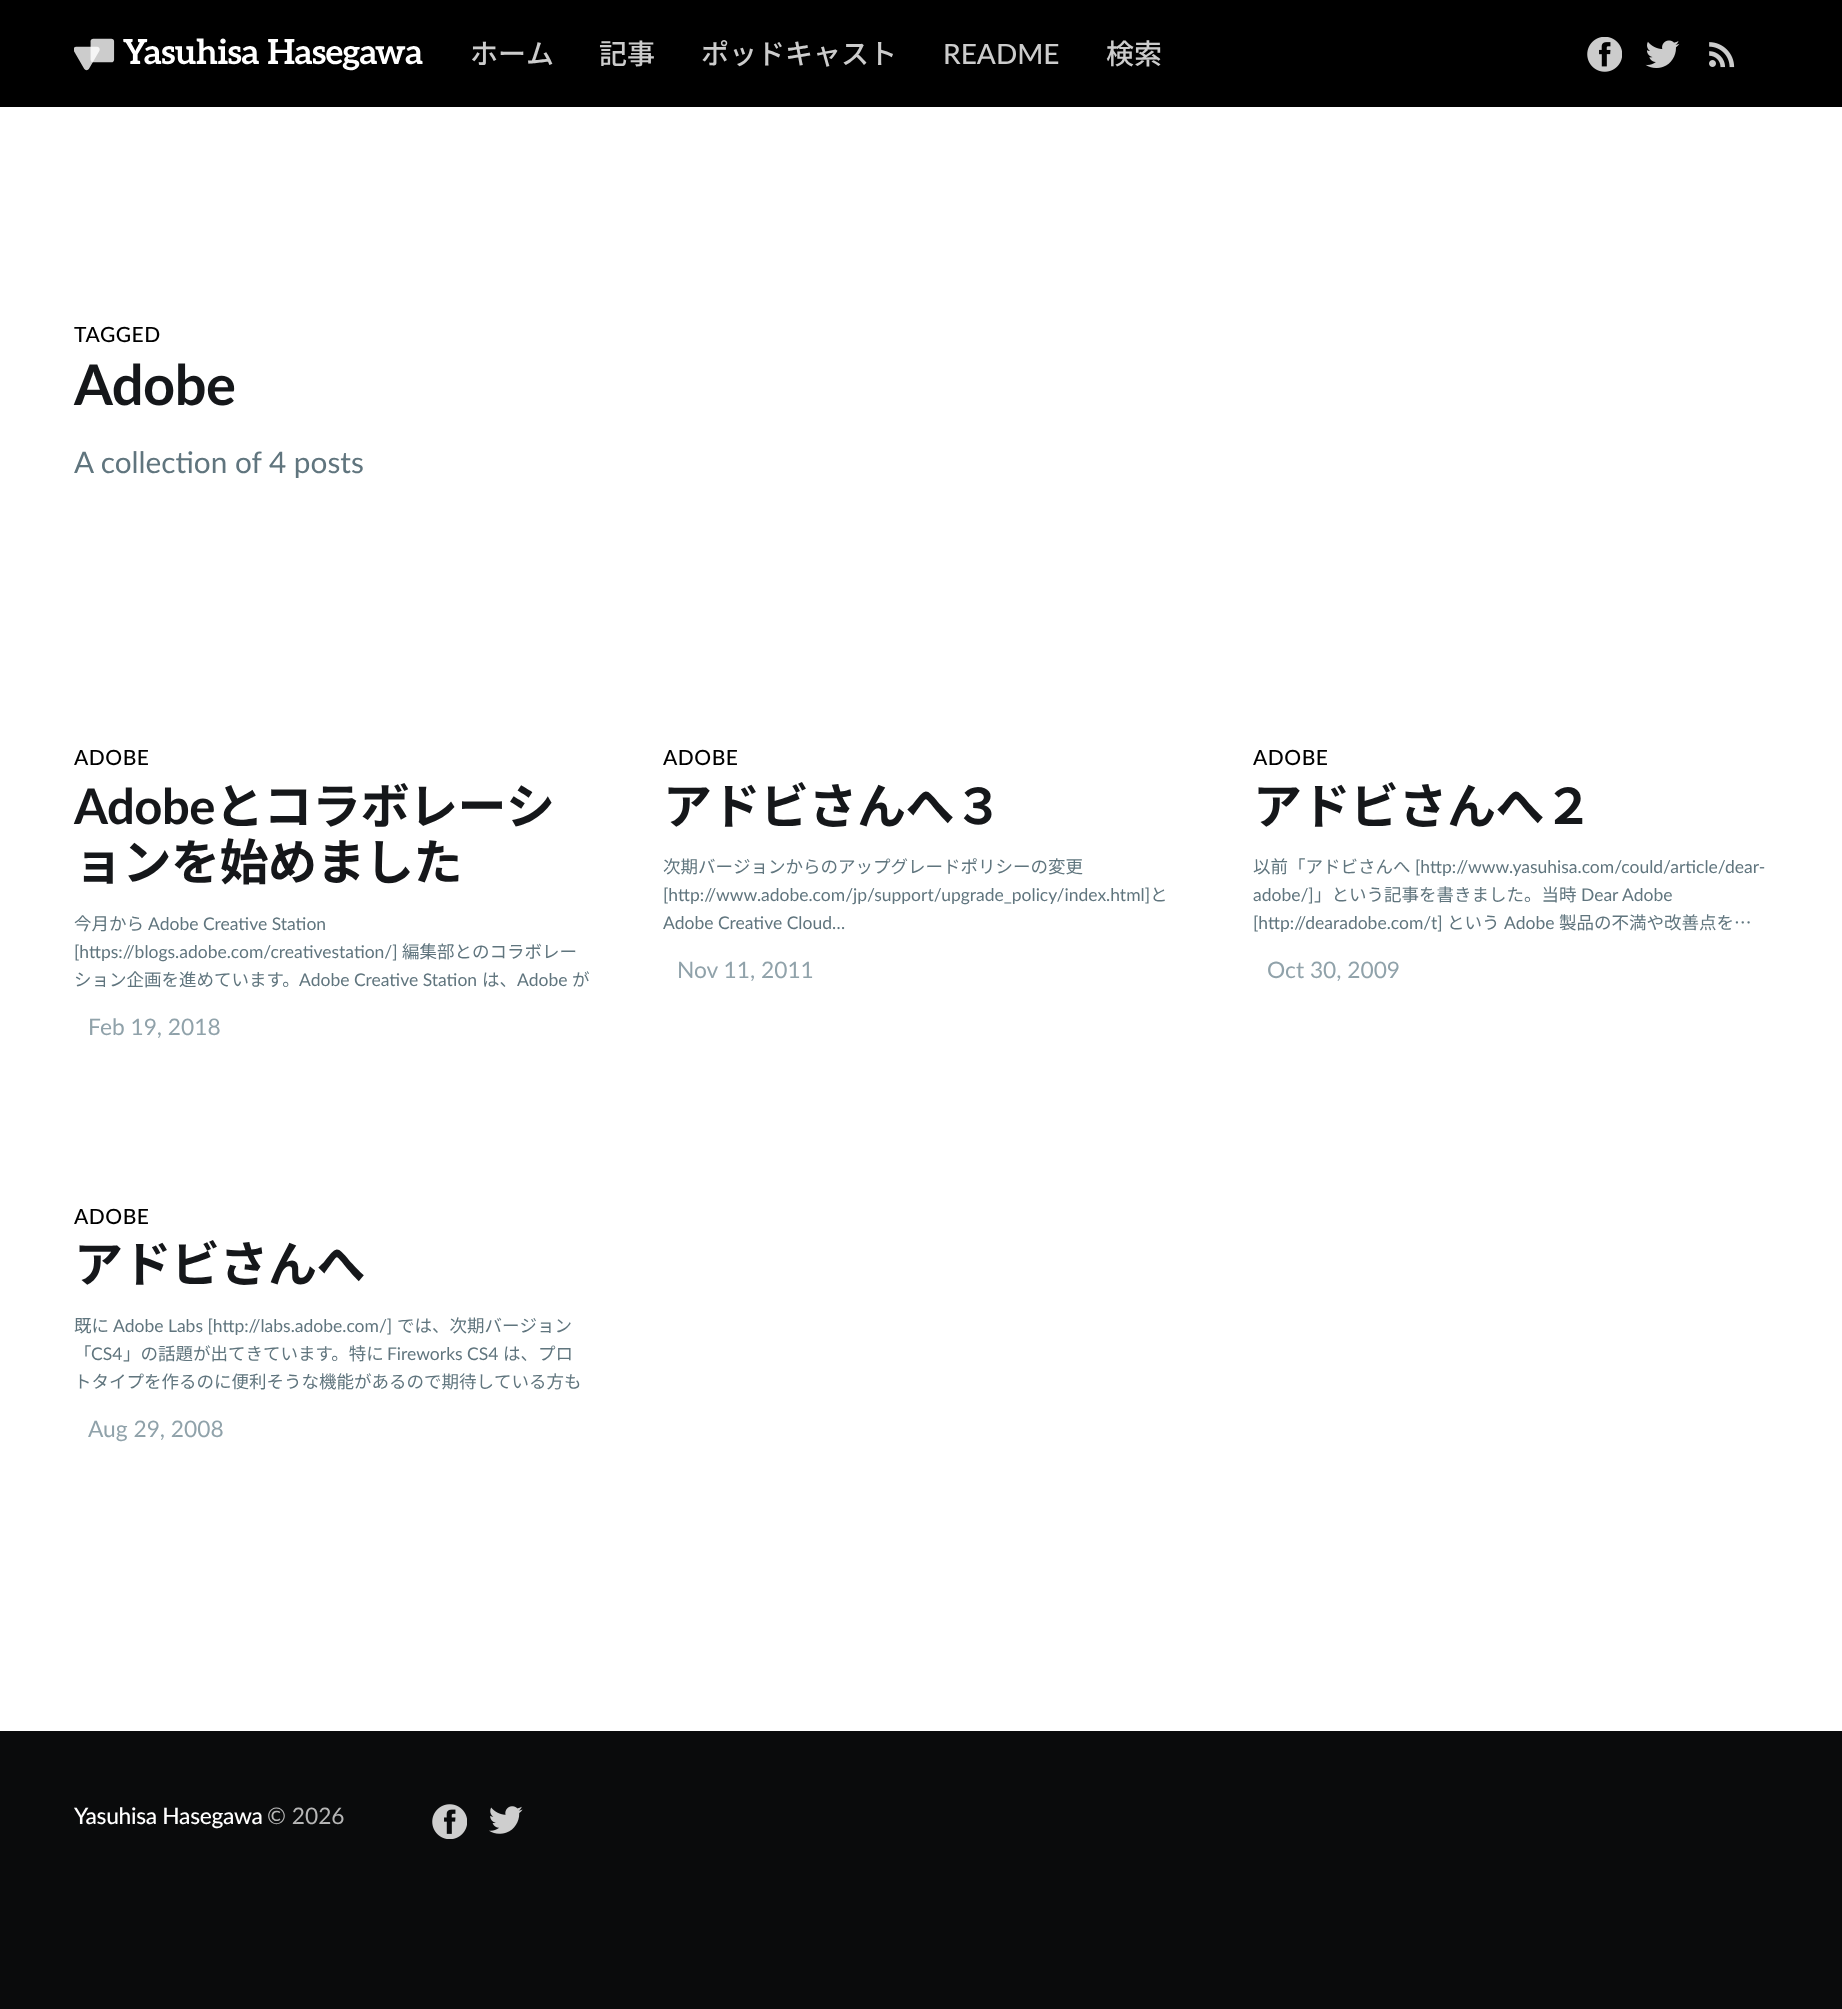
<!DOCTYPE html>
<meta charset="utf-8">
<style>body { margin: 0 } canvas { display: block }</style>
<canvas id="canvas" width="1842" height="2009"></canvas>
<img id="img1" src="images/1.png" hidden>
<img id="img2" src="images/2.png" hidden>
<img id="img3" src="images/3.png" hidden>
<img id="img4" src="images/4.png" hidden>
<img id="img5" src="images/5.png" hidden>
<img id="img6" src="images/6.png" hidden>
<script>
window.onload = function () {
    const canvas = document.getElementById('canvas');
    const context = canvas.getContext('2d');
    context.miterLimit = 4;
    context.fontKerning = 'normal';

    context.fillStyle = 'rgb(255, 255, 255)';
    context.fillRect(0, 0, 1842, 2009);
    context.fillStyle = 'rgb(0, 0, 0)';
    context.fillRect(0, 0, 1842, 107);
    context.drawImage(document.getElementById('img1'), 74, 38, 349, 33);
    context.drawImage(document.getElementById('img2'), 1587, 37, 35, 35);
    context.drawImage(document.getElementById('img3'), 1645, 40, 35, 28);
    context.drawImage(document.getElementById('img4'), 1709, 42, 26, 26);
    context.fillStyle = 'rgb(10, 11, 12)';
    context.fillRect(0, 1731, 1842, 278);
    context.drawImage(document.getElementById('img5'), 432, 1804, 35, 35);
    context.drawImage(document.getElementById('img6'), 489, 1806, 34, 28);
    context.font = '500 28px Noto Sans JP';
    context.fillStyle = 'rgb(204, 204, 204)';
    context.fillText('ホーム', 470, 64);
    context.fillText('記事', 599, 64);
    context.fillText('ポッドキャスト', 701, 64);
    context.font = '500 28px Lato';
    context.fillText('README', 943, 64);
    context.font = '500 28px Noto Sans JP';
    context.fillText('検索', 1106, 64);
    context.letterSpacing = '0.5px';
    context.font = '500 21px Lato';
    context.fillStyle = 'rgb(0, 0, 0)';
    context.fillText('TAGGED', 74, 342);
    context.letterSpacing = '-0.5px';
    context.font = 'bold 56px Lato';
    context.fillStyle = 'rgb(21, 23, 26)';
    context.fillText('Adobe', 74, 405);
    context.letterSpacing = '0px';
    context.font = '29.75px Lato';
    context.fillStyle = 'rgb(96, 117, 126)';
    context.fillText('A collection of 4 posts', 74, 473);
    context.letterSpacing = '0.5px';
    context.font = '500 21px Lato';
    context.fillStyle = 'rgb(0, 0, 0)';
    context.fillText('ADOBE', 74, 765);
    context.letterSpacing = '-0.5px';
    context.font = 'bold 49px Lato';
    context.fillStyle = 'rgb(21, 23, 26)';
    context.fillText('Adobe', 74, 824);
    context.font = 'bold 49px Noto Sans JP';
    context.fillText('とコラボレーシ', 215, 824);
    context.fillText('ョンを始めました', 74, 880);
    context.letterSpacing = '0px';
    context.font = '17.5px Noto Sans JP';
    context.fillStyle = 'rgb(96, 117, 126)';
    context.fillText('今月から', 74, 930);
    context.font = '17.5px Lato';
    context.fillText('Adobe Creative Station', 148, 930);
    context.fillText('[https://blogs.adobe.com/creativestation/]', 74, 958);
    context.font = '17.5px Noto Sans JP';
    context.fillText('編集部とのコラボレー', 402, 958);
    context.fillText('ション企画を進めています。', 74, 986);
    context.font = '17.5px Lato';
    context.fillText('Adobe Creative Station', 299, 986);
    context.font = '17.5px Noto Sans JP';
    context.fillText('は、', 482, 986);
    context.font = '17.5px Lato';
    context.fillText('Adobe', 517, 986);
    context.font = '17.5px Noto Sans JP';
    context.fillText('が', 572, 986);
    context.font = '22.75px Lato';
    context.fillStyle = 'rgb(144, 162, 170)';
    context.fillText('Feb 19, 2018', 88, 1035);
    context.letterSpacing = '0.5px';
    context.font = '500 21px Lato';
    context.fillStyle = 'rgb(0, 0, 0)';
    context.fillText('ADOBE', 663, 765);
    context.letterSpacing = '-0.5px';
    context.font = 'bold 49px Noto Sans JP';
    context.fillStyle = 'rgb(21, 23, 26)';
    context.fillText('アドビさんへ３', 663, 824);
    context.letterSpacing = '0px';
    context.font = '17.5px Noto Sans JP';
    context.fillStyle = 'rgb(96, 117, 126)';
    context.fillText('次期バージョンからのアップグレードポリシーの変更', 663, 873);
    context.font = '17.5px Lato';
    context.fillText('[http://www.adobe.com/jp/support/upgrade_policy/index.html]', 663, 901);
    context.font = '17.5px Noto Sans JP';
    context.fillText('と', 1150, 901);
    context.font = '17.5px Lato';
    context.fillText('Adobe Creative Cloud…', 663, 929);
    context.font = '22.75px Lato';
    context.fillStyle = 'rgb(144, 162, 170)';
    context.fillText('Nov 11, 2011', 677, 978);
    context.letterSpacing = '0.5px';
    context.font = '500 21px Lato';
    context.fillStyle = 'rgb(0, 0, 0)';
    context.fillText('ADOBE', 1253, 765);
    context.letterSpacing = '-0.5px';
    context.font = 'bold 49px Noto Sans JP';
    context.fillStyle = 'rgb(21, 23, 26)';
    context.fillText('アドビさんへ２', 1253, 824);
    context.letterSpacing = '0px';
    context.font = '17.5px Noto Sans JP';
    context.fillStyle = 'rgb(96, 117, 126)';
    context.fillText('以前「アドビさんへ', 1253, 873);
    context.font = '17.5px Lato';
    context.fillText('[http://www.yasuhisa.com/could/article/dear-', 1415, 873);
    context.fillText('adobe/]', 1253, 901);
    context.font = '17.5px Noto Sans JP';
    context.fillText('」という記事を書きました。当時', 1314, 901);
    context.font = '17.5px Lato';
    context.fillText('Dear Adobe', 1581, 901);
    context.fillText('[http://dearadobe.com/t]', 1253, 929);
    context.font = '17.5px Noto Sans JP';
    context.fillText('という', 1447, 929);
    context.font = '17.5px Lato';
    context.fillText('Adobe', 1504, 929);
    context.font = '17.5px Noto Sans JP';
    context.fillText('製品の不満や改善点を…', 1559, 929);
    context.font = '22.75px Lato';
    context.fillStyle = 'rgb(144, 162, 170)';
    context.fillText('Oct 30, 2009', 1267, 978);
    context.letterSpacing = '0.5px';
    context.font = '500 21px Lato';
    context.fillStyle = 'rgb(0, 0, 0)';
    context.fillText('ADOBE', 74, 1224);
    context.letterSpacing = '-0.5px';
    context.font = 'bold 49px Noto Sans JP';
    context.fillStyle = 'rgb(21, 23, 26)';
    context.fillText('アドビさんへ', 74, 1282);
    context.letterSpacing = '0px';
    context.font = '17.5px Noto Sans JP';
    context.fillStyle = 'rgb(96, 117, 126)';
    context.fillText('既に', 74, 1332);
    context.font = '17.5px Lato';
    context.fillText('Adobe Labs [http://labs.adobe.com/]', 113, 1332);
    context.font = '17.5px Noto Sans JP';
    context.fillText('では、次期バージョン', 397, 1332);
    context.fillText('「', 74, 1360);
    context.font = '17.5px Lato';
    context.fillText('CS4', 91, 1360);
    context.font = '17.5px Noto Sans JP';
    context.fillText('」の話題が出てきています。特に', 123, 1360);
    context.font = '17.5px Lato';
    context.fillText('Fireworks CS4', 387, 1360);
    context.font = '17.5px Noto Sans JP';
    context.fillText('は、プロ', 503, 1360);
    context.fillText('トタイプを作るのに便利そうな機能があるので期待している方も', 74, 1388);
    context.font = '22.75px Lato';
    context.fillStyle = 'rgb(144, 162, 170)';
    context.fillText('Aug 29, 2008', 88, 1437);
    context.letterSpacing = '-0.3px';
    context.font = '500 22.75px Lato';
    context.fillStyle = 'rgb(255, 255, 255)';
    context.fillText('Yasuhisa Hasegawa', 74, 1824);
    context.letterSpacing = '0px';
    context.font = '22.75px Lato';
    context.fillStyle = 'rgb(182, 182, 182)';
    context.fillText('© 2026', 267, 1824);
};
</script>
